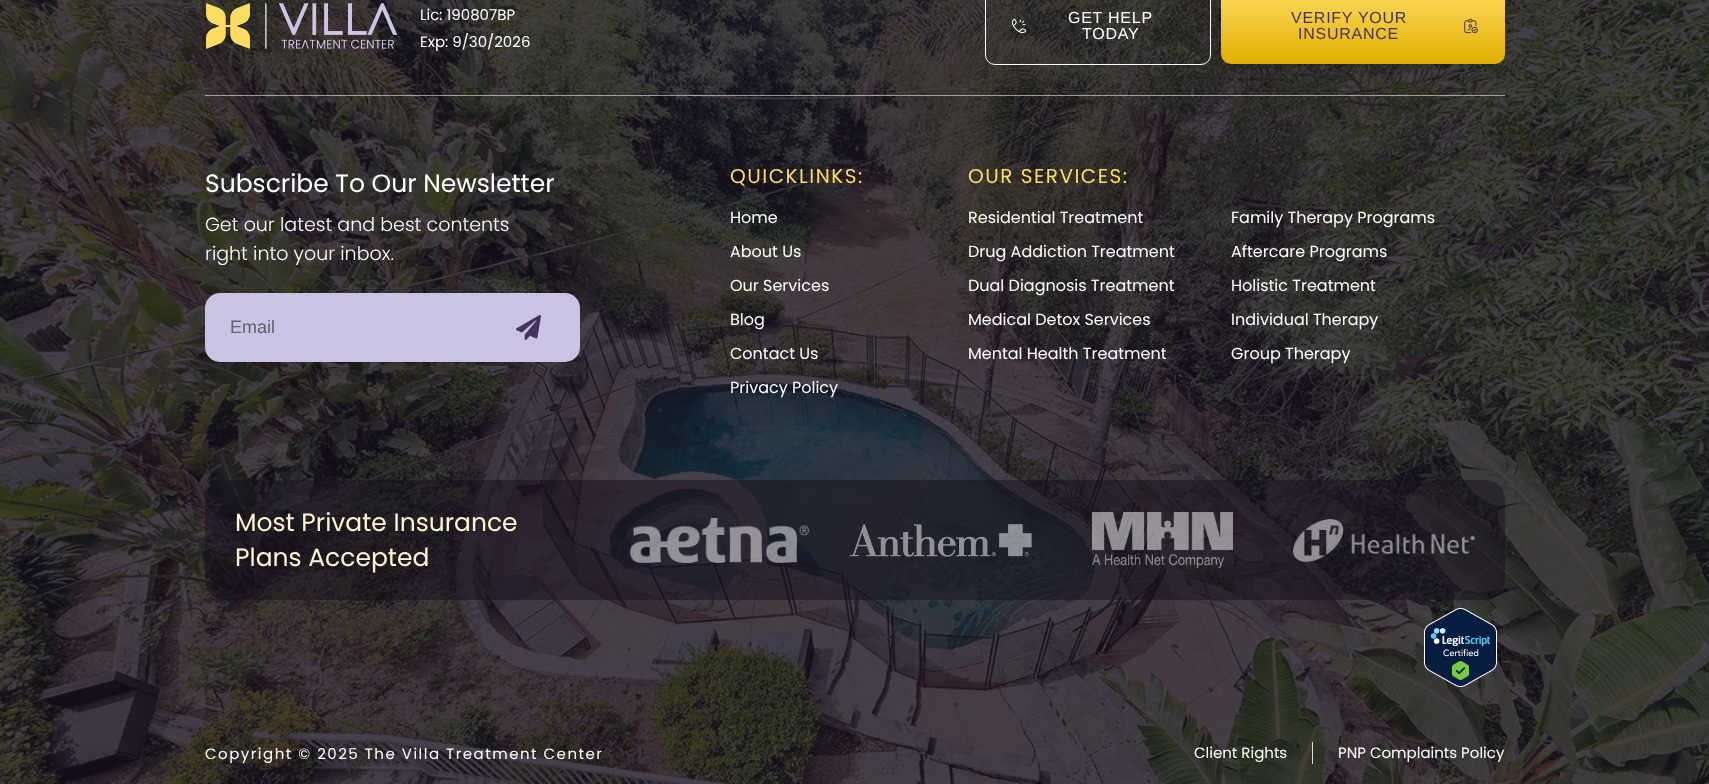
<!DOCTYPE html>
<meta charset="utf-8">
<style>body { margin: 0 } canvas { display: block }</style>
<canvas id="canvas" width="1709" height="784"></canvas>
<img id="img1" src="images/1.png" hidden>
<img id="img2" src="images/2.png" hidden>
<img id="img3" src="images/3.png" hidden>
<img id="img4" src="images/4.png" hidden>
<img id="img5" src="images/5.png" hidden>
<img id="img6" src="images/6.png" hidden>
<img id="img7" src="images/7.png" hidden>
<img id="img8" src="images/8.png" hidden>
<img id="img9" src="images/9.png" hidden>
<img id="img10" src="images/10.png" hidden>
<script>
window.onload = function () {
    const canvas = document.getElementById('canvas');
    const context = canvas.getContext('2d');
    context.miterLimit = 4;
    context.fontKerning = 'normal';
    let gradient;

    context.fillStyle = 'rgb(255, 255, 255)';
    context.fillRect(0, 0, 1709, 784);
    context.drawImage(document.getElementById('img1'), 0, 0, 1709, 784);
    context.fillStyle = 'rgba(255, 255, 255, 0.54)';
    context.fillRect(205, 95, 1300, 1);
    context.drawImage(document.getElementById('img2'), 206, 3, 192, 46);
    context.beginPath();
    context.roundRect(985.5, -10.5, 225, 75, 9.5);
    context.strokeStyle = 'rgb(255, 255, 255)';
    context.stroke();
    context.drawImage(document.getElementById('img3'), 1011, 18, 16, 16);
    gradient = context.createLinearGradient(1363, -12, 1363, 64);
    gradient.addColorStop(0, 'rgb(255, 220, 97)');
    gradient.addColorStop(1, 'rgb(225, 174, 0)');
    context.fillStyle = gradient;
    context.beginPath();
    context.roundRect(1221, -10, 284, 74, 10);
    context.fill();
    context.drawImage(document.getElementById('img4'), 1464, 18, 14, 16);
    context.fillStyle = 'rgb(203, 195, 227)';
    context.beginPath();
    context.roundRect(205, 293, 375, 69, 15);
    context.fill();
    context.drawImage(document.getElementById('img5'), 516, 315, 25, 25);
    context.fillStyle = 'rgba(23, 17, 31, 0.51)';
    context.beginPath();
    context.roundRect(205, 480, 1300, 120, 20);
    context.fill();
    context.drawImage(document.getElementById('img6'), 630, 518, 180, 45);
    context.drawImage(document.getElementById('img7'), 850, 524, 182, 33);
    context.drawImage(document.getElementById('img8'), 1092, 512, 141, 56);
    context.drawImage(document.getElementById('img9'), 1293, 519, 182, 43);
    context.drawImage(document.getElementById('img10'), 1424, 608, 73, 79);
    context.fillStyle = 'rgb(221, 221, 221)';
    context.fillRect(1312, 742, 1, 22);
    context.font = '15px Poppins';
    context.fillStyle = 'rgb(255, 255, 255)';
    context.fillText('Lic: 190807BP', 420, 20);
    context.fillText('Exp: 9/30/2026', 420, 47);
    context.letterSpacing = '0.75px';
    context.font = '16px Liberation Sans';
    context.fillText('GET HELP', 1068, 23);
    context.fillText('TODAY', 1082, 39);
    context.fillStyle = 'rgb(69, 51, 93)';
    context.fillText('VERIFY YOUR', 1291, 23);
    context.fillText('INSURANCE', 1298, 39);
    context.letterSpacing = '0px';
    context.font = '25px Poppins';
    context.fillStyle = 'rgb(255, 255, 255)';
    context.fillText('Subscribe To Our Newsletter', 205, 192);
    context.font = '300 19px Poppins';
    context.fillText('Get our latest and best contents', 205, 231);
    context.fillText('right into your inbox.', 205, 260);
    context.font = '18px Liberation Sans';
    context.fillStyle = 'rgb(97, 94, 106)';
    context.fillText('Email', 230, 333);
    context.letterSpacing = '1.5px';
    context.font = '20px Poppins';
    context.fillStyle = 'rgb(255, 220, 97)';
    context.fillText('QUICKLINKS:', 730, 183);
    context.letterSpacing = '0px';
    context.font = '16px Poppins';
    context.fillStyle = 'rgb(255, 255, 255)';
    context.fillText('Home', 730, 223);
    context.fillText('About Us', 730, 257);
    context.fillText('Our Services', 730, 291);
    context.fillText('Blog', 730, 325);
    context.fillText('Contact Us', 730, 359);
    context.fillText('Privacy Policy', 730, 393);
    context.letterSpacing = '1.5px';
    context.font = '20px Poppins';
    context.fillStyle = 'rgb(255, 220, 97)';
    context.fillText('OUR SERVICES:', 968, 183);
    context.letterSpacing = '0px';
    context.font = '16px Poppins';
    context.fillStyle = 'rgb(255, 255, 255)';
    context.fillText('Residential Treatment', 968, 223);
    context.fillText('Drug Addiction Treatment', 968, 257);
    context.fillText('Dual Diagnosis Treatment', 968, 291);
    context.fillText('Medical Detox Services', 968, 325);
    context.fillText('Mental Health Treatment', 968, 359);
    context.fillText('Family Therapy Programs', 1231, 223);
    context.fillText('Aftercare Programs', 1231, 257);
    context.fillText('Holistic Treatment', 1231, 291);
    context.fillText('Individual Therapy', 1231, 325);
    context.fillText('Group Therapy', 1231, 359);
    context.font = '25px Poppins';
    context.fillStyle = 'rgb(255, 245, 211)';
    context.fillText('Most Private Insurance', 235, 531);
    context.fillText('Plans Accepted', 235, 566);
    context.letterSpacing = '1.5px';
    context.font = '15px Poppins';
    context.fillStyle = 'rgb(255, 255, 255)';
    context.fillText('Copyright © 2025 The Villa Treatment Center', 205, 759);
    context.letterSpacing = '0px';
    context.fillText('Client Rights', 1194, 758);
    context.fillText('PNP Complaints Policy', 1338, 758);
};
</script>
